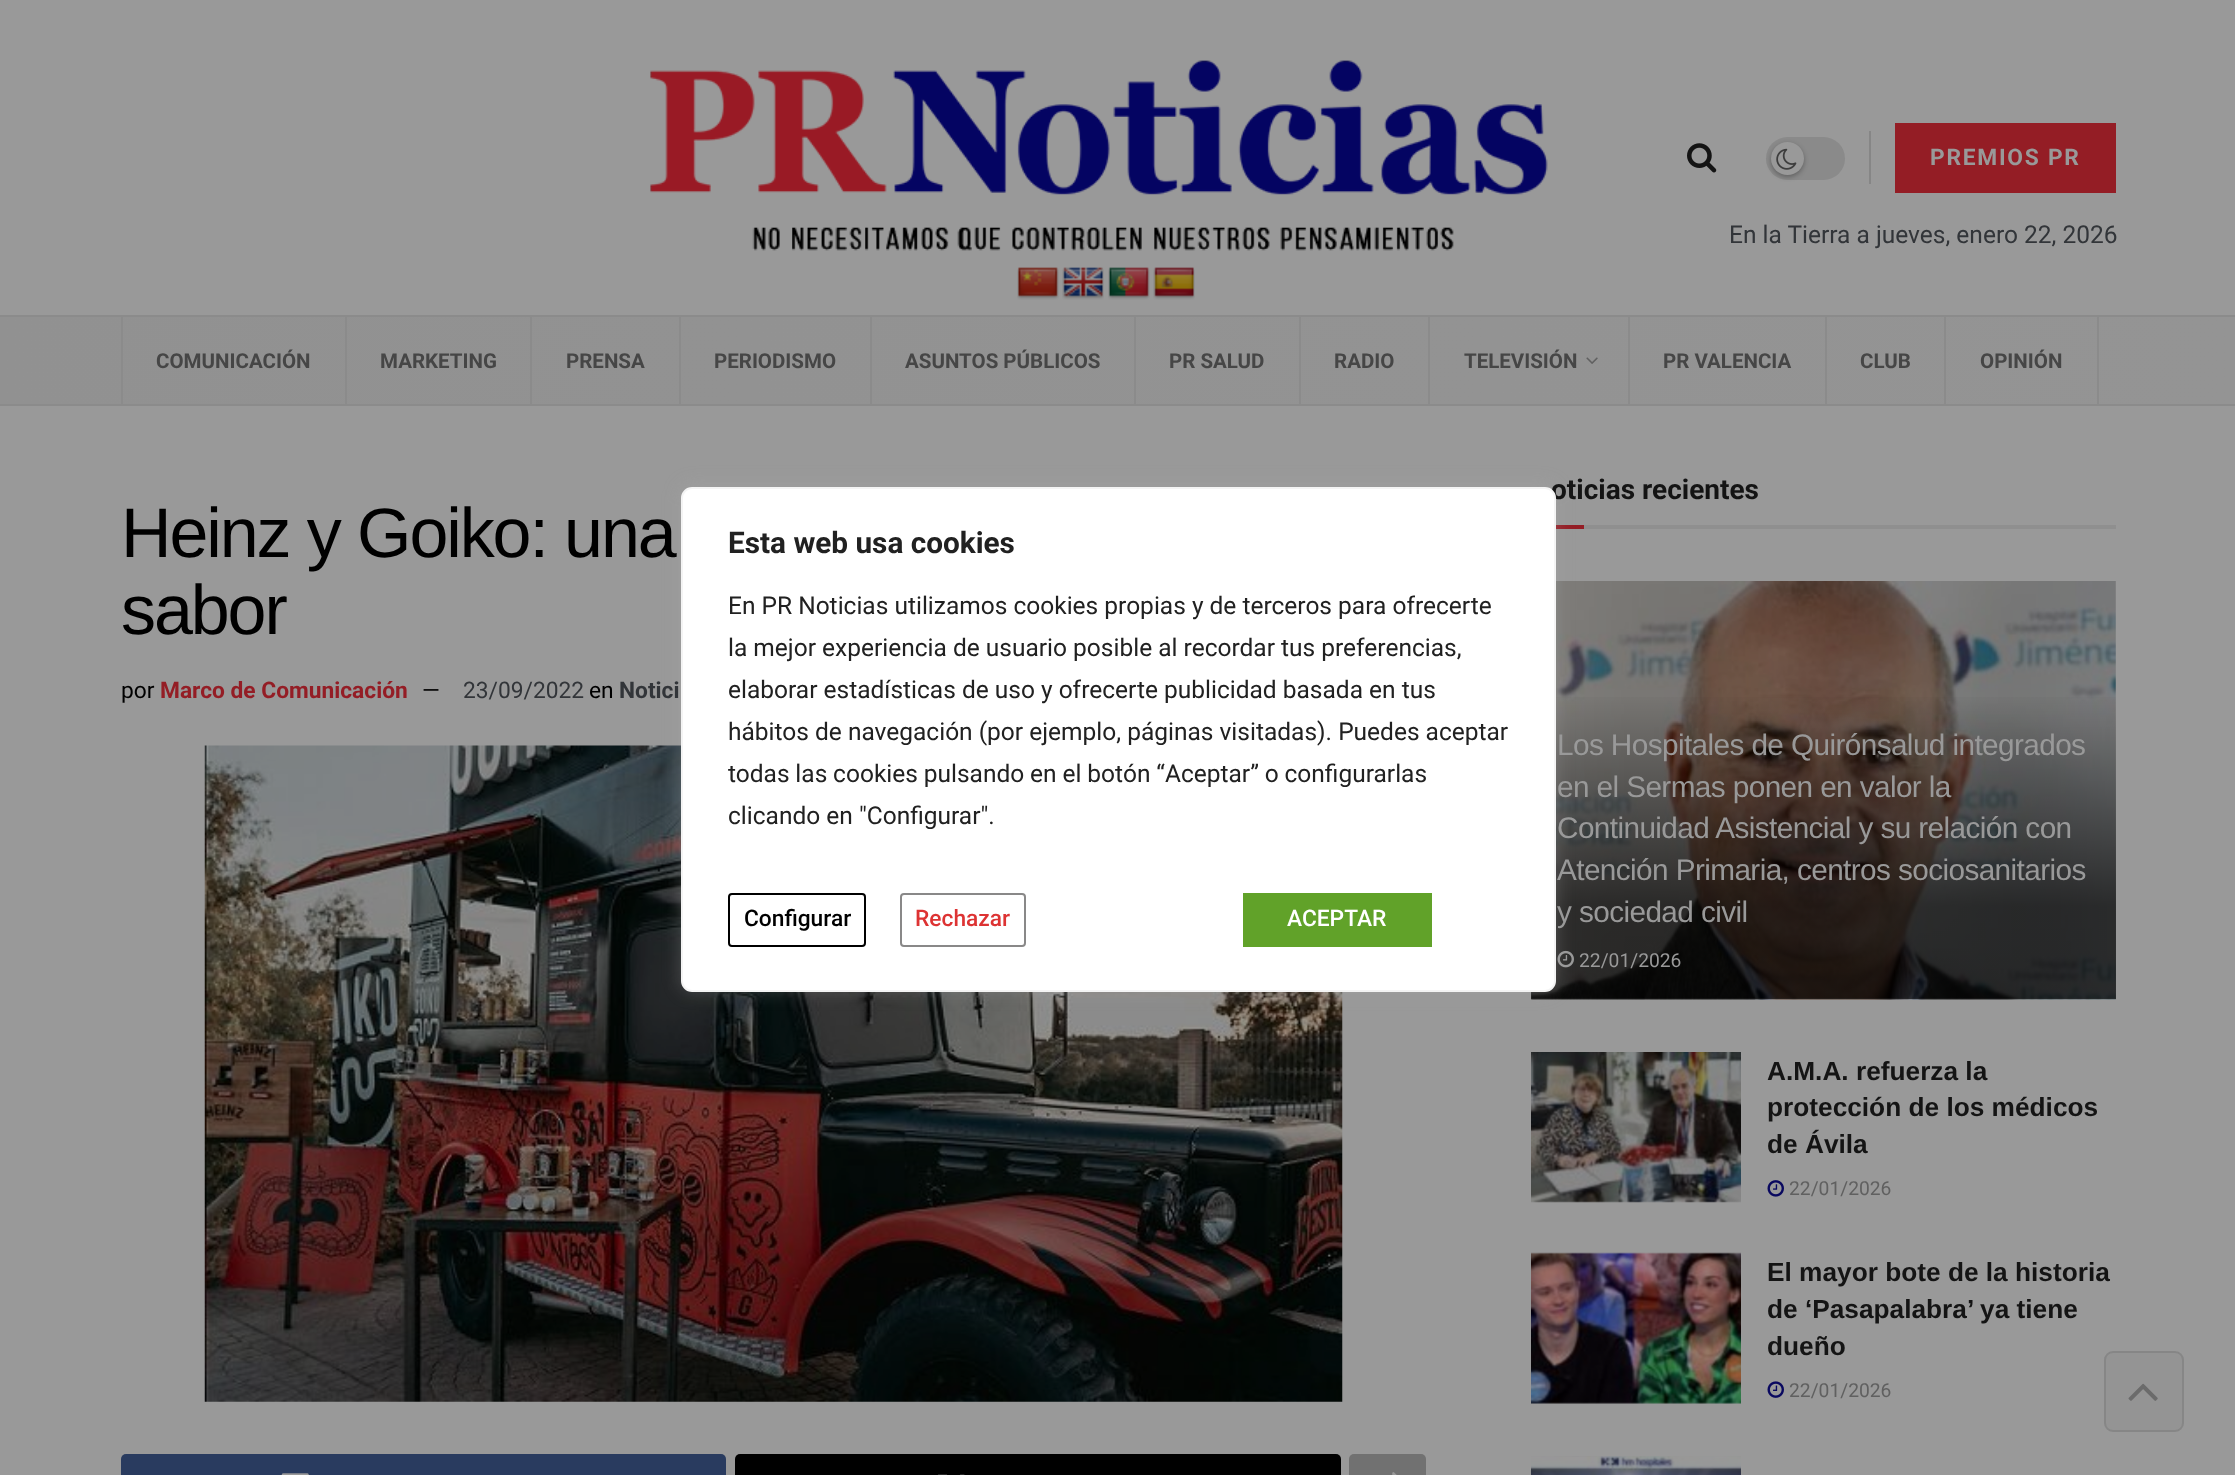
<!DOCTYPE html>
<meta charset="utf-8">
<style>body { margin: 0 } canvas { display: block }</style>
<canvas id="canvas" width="2235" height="1475"></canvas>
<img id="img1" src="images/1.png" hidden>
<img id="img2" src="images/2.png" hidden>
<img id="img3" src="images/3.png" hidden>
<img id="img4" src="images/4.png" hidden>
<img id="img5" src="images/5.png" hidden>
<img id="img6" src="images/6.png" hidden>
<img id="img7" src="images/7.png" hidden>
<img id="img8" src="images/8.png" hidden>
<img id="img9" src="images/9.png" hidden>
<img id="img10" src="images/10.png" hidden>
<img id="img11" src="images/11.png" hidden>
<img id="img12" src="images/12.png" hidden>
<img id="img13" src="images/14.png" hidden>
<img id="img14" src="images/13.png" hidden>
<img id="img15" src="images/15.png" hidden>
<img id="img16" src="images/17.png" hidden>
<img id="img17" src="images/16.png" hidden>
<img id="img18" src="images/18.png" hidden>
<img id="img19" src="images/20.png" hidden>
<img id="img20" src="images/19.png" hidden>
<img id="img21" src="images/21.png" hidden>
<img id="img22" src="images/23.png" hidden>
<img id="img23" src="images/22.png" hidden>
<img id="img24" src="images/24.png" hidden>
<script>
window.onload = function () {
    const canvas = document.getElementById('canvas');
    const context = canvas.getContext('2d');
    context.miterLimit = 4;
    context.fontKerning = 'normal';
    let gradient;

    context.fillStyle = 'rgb(153, 153, 153)';
    context.fillRect(0, 0, 2235, 1475);
    context.drawImage(document.getElementById('img1'), 650, 60, 898, 191);
    context.drawImage(document.getElementById('img2'), 1687, 143, 30, 30);
    context.fillStyle = 'rgb(138, 138, 138)';
    context.beginPath();
    context.roundRect(1766, 137, 79, 43, 21.5);
    context.fill();
    context.fillStyle = 'rgba(0, 0, 0, 0.3)';
    context.filter = 'blur(2.5px)';
    context.beginPath();
    context.roundRect(1771, 144, 33, 33, 16.5);
    context.fill();
    context.filter = 'none';
    context.fillStyle = 'rgb(153, 153, 153)';
    context.beginPath();
    context.arc(1787.5, 158.5, 16.5, 0, 2 * Math.PI);
    context.fill();
    context.drawImage(document.getElementById('img3'), 1776, 148, 21, 22);
    context.fillStyle = 'rgb(134, 134, 134)';
    context.fillRect(1869, 131, 2, 53);
    context.fillStyle = 'rgb(148, 29, 37)';
    context.fillRect(1895, 123, 221, 70);
    context.drawImage(document.getElementById('img4'), 1017, 267, 42, 33);
    context.drawImage(document.getElementById('img5'), 1062, 267, 42, 33);
    context.drawImage(document.getElementById('img6'), 1108, 267, 42, 33);
    context.drawImage(document.getElementById('img7'), 1153, 267, 42, 33);
    gradient = context.createLinearGradient(0, 361, 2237, 360);
    gradient.addColorStop(0, 'rgb(145, 145, 145)');
    gradient.addColorStop(1, 'rgb(148, 148, 148)');
    context.fillStyle = gradient;
    context.fillRect(0, 317, 2235, 87);
    context.fillStyle = 'rgb(139, 139, 139)';
    context.fillRect(0, 315, 2235, 2);
    context.fillRect(0, 404, 2235, 2);
    context.fillRect(2097, 317, 2, 87);
    context.fillRect(121, 317, 2, 87);
    context.fillRect(345, 317, 2, 87);
    context.fillRect(530, 317, 2, 87);
    context.fillRect(679, 317, 2, 87);
    context.fillRect(870, 317, 2, 87);
    context.fillRect(1134, 317, 2, 87);
    context.fillRect(1299, 317, 2, 87);
    context.fillRect(1428, 317, 2, 87);
    context.fillRect(1628, 317, 2, 87);
    context.drawImage(document.getElementById('img8'), 1586, 357, 12, 7);
    context.fillRect(1825, 317, 2, 87);
    context.fillRect(1944, 317, 2, 87);
    context.drawImage(document.getElementById('img9'), 204, 745, 1139, 657);
    context.fillStyle = 'rgb(41, 59, 95)';
    context.beginPath();
    context.roundRect(121, 1454, 605, 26, 5);
    context.fill();
    context.drawImage(document.getElementById('img10'), 281, 1473, 28, 2);
    context.fillStyle = 'rgb(0, 0, 0)';
    context.beginPath();
    context.roundRect(735, 1454, 606, 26, 5);
    context.fill();
    context.drawImage(document.getElementById('img11'), 938, 1474, 27, 1);
    context.fillStyle = 'rgb(113, 113, 113)';
    context.beginPath();
    context.roundRect(1349, 1454, 77, 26, 5);
    context.fill();
    context.drawImage(document.getElementById('img12'), 1392, 1472, 5, 3);
    context.fillStyle = 'rgb(143, 143, 143)';
    context.fillRect(1584, 525, 532, 4);
    context.fillStyle = 'rgb(148, 29, 37)';
    context.fillRect(1556, 525, 28, 4);
    context.fillStyle = 'rgb(148, 148, 148)';
    context.fillRect(1531, 581, 585, 418);
    context.drawImage(document.getElementById('img13'), 1597, 998, 115, 2);
    context.drawImage(document.getElementById('img14'), 1531, 581, 585, 419);
    gradient = context.createLinearGradient(1824, 690, 1824, 999);
    gradient.addColorStop(0, 'rgba(0, 0, 0, 0)');
    gradient.addColorStop(0.7, 'rgba(0, 0, 0, 0.65)');
    context.fillStyle = gradient;
    context.fillRect(1531, 697, 585, 302);
    context.drawImage(document.getElementById('img15'), 1557, 950, 17, 18);
    context.drawImage(document.getElementById('img16'), 1554, 1201, 43, 1);
    context.drawImage(document.getElementById('img17'), 1531, 1052, 210, 151);
    context.drawImage(document.getElementById('img18'), 1767, 1180, 17, 17);
    context.fillStyle = 'rgb(148, 148, 148)';
    context.fillRect(1531, 1253, 210, 151);
    context.drawImage(document.getElementById('img19'), 1554, 1253, 43, 151);
    context.drawImage(document.getElementById('img20'), 1531, 1252, 210, 152);
    context.drawImage(document.getElementById('img21'), 1767, 1381, 17, 17);
    context.fillRect(1531, 1456, 210, 1);
    context.drawImage(document.getElementById('img22'), 1554, 1456, 43, 1);
    context.drawImage(document.getElementById('img23'), 1531, 1456, 210, 19);
    context.fillStyle = 'rgba(118, 118, 118, 0.15)';
    context.beginPath();
    context.roundRect(2104, 1351, 80, 81, 9);
    context.fill();
    context.beginPath();
    context.roundRect(2105, 1352, 78, 79, 8);
    context.strokeStyle = 'rgba(31, 31, 31, 0.11)';
    context.lineWidth = 2;
    context.stroke();
    context.drawImage(document.getElementById('img24'), 2128, 1383, 30, 18);
    context.save();
    context.beginPath();
    context.moveTo(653, 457);
    context.lineTo(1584, 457);
    context.lineTo(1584, 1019);
    context.lineTo(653, 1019);
    context.closePath();
    context.moveTo(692, 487);
    context.lineTo(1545, 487);
    context.bezierCurveTo(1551, 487, 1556, 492, 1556, 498);
    context.lineTo(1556, 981);
    context.bezierCurveTo(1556, 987, 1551, 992, 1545, 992);
    context.lineTo(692, 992);
    context.bezierCurveTo(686, 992, 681, 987, 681, 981);
    context.lineTo(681, 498);
    context.bezierCurveTo(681, 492, 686, 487, 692, 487);
    context.closePath();
    context.clip('evenodd');
    context.fillStyle = 'rgba(172, 171, 171, 0.3)';
    context.filter = 'blur(9px)';
    context.beginPath();
    context.roundRect(681, 485, 875, 506, 11);
    context.fill();
    context.filter = 'none';
    context.restore();
    context.letterSpacing = '1.75px';
    context.font = 'bold 22.75px Roboto';
    context.fillStyle = 'rgb(153, 153, 153)';
    context.fillText('PREMIOS PR', 1930, 165);
    context.letterSpacing = '0px';
    context.font = '24.5px Roboto';
    context.fillStyle = 'rgb(50, 53, 57)';
    context.fillText('En la Tierra a jueves, enero 22, 2026', 1729, 243);
    context.font = 'bold 20.5px Roboto';
    context.fillStyle = 'rgb(70, 70, 70)';
    context.fillText('COMUNICACIÓN', 156, 368);
    context.fillText('MARKETING', 380, 368);
    context.fillText('PRENSA', 566, 368);
    context.fillText('PERIODISMO', 714, 368);
    context.fillText('ASUNTOS PÚBLICOS', 905, 368);
    context.fillText('PR SALUD', 1169, 368);
    context.fillText('RADIO', 1334, 368);
    context.fillText('TELEVISIÓN', 1464, 368);
    context.fillText('PR VALENCIA', 1663, 368);
    context.fillText('CLUB', 1860, 368);
    context.fillText('OPINIÓN', 1980, 368);
    context.letterSpacing = '-2.1px';
    context.font = '70px Liberation Sans';
    context.fillStyle = 'rgb(0, 0, 0)';
    context.fillText('Heinz y Goiko: una', 121, 557);
    context.fillText('sabor', 121, 634);
    context.letterSpacing = '0px';
    context.font = '22.75px Roboto';
    context.fillText('por', 121, 698);
    context.font = 'bold 22.75px Roboto';
    context.fillStyle = 'rgb(148, 29, 37)';
    context.fillText('Marco de Comunicación', 160, 698);
    context.font = '22.75px Roboto';
    context.fillStyle = 'rgb(0, 0, 0)';
    context.fillText('—', 422, 698);
    context.fillStyle = 'rgb(50, 53, 57)';
    context.fillText('23/09/2022', 463, 698);
    context.fillStyle = 'rgb(0, 0, 0)';
    context.fillText('en', 589, 698);
    context.font = 'bold 22.75px Roboto';
    context.fillStyle = 'rgb(50, 53, 57)';
    context.fillText('Notici', 619, 698);
    context.font = 'bold 28px Roboto';
    context.fillStyle = 'rgb(20, 20, 20)';
    context.fillText('oticias recientes', 1551, 499);
    context.letterSpacing = '-0.6px';
    context.font = '29.75px Liberation Sans';
    context.fillStyle = 'rgb(153, 153, 153)';
    context.fillText('Los Hospitales de Quirónsalud integrados', 1557, 755);
    context.fillText('en el Sermas ponen en valor la', 1557, 797);
    context.fillText('Continuidad Asistencial y su relación con', 1557, 838);
    context.fillText('Atención Primaria, centros sociosanitarios', 1557, 880);
    context.fillText('y sociedad civil', 1557, 922);
    context.letterSpacing = '0px';
    context.font = '19.25px Roboto';
    context.fillText('22/01/2026', 1579, 967);
    context.font = 'bold 26.25px Liberation Sans';
    context.fillStyle = 'rgb(20, 20, 20)';
    context.fillText('A.M.A. refuerza la', 1767, 1080);
    context.fillText('protección de los médicos', 1767, 1116);
    context.fillText('de Ávila', 1767, 1153);
    context.font = '19.25px Roboto';
    context.fillStyle = 'rgb(96, 96, 96)';
    context.fillText('22/01/2026', 1789, 1195);
    context.font = 'bold 26.25px Liberation Sans';
    context.fillStyle = 'rgb(20, 20, 20)';
    context.fillText('El mayor bote de la historia', 1767, 1281);
    context.fillText('de ‘Pasapalabra’ ya tiene', 1767, 1318);
    context.fillText('dueño', 1767, 1355);
    context.font = '19.25px Roboto';
    context.fillStyle = 'rgb(96, 96, 96)';
    context.fillText('22/01/2026', 1789, 1397);
    context.fillStyle = 'rgb(255, 255, 255)';
    context.beginPath();
    context.roundRect(682, 488, 873, 503, 10);
    context.fill();
    context.strokeStyle = 'rgb(244, 244, 244)';
    context.stroke();
    context.font = 'bold 29.75px Roboto';
    context.fillStyle = 'rgb(33, 33, 33)';
    context.fillText('Esta web usa cookies', 728, 553);
    context.font = '24.5px Roboto';
    context.fillText('En PR Noticias utilizamos cookies propias y de terceros para ofrecerte', 728, 614);
    context.fillText('la mejor experiencia de usuario posible al recordar tus preferencias,', 728, 656);
    context.fillText('elaborar estadísticas de uso y ofrecerte publicidad basada en tus', 728, 698);
    context.fillText('hábitos de navegación (por ejemplo, páginas visitadas). Puedes aceptar', 728, 740);
    context.wordSpacing = '-0.25px';
    context.fillText('todas las cookies pulsando en el botón “Aceptar” o configurarlas', 728, 782);
    context.wordSpacing = '0px';
    context.fillText('clicando en "Configurar".', 728, 824);
    context.beginPath();
    context.roundRect(729, 894, 136, 52, 3);
    context.strokeStyle = 'rgb(0, 0, 0)';
    context.stroke();
    context.font = '500 22.75px Roboto';
    context.fillStyle = 'rgb(0, 0, 0)';
    context.fillText('Configurar', 744, 926);
    context.beginPath();
    context.roundRect(901, 894, 124, 52, 3);
    context.strokeStyle = 'rgb(137, 136, 136)';
    context.stroke();
    context.fillStyle = 'rgb(221, 51, 51)';
    context.fillText('Rechazar', 915, 926);
    context.fillStyle = 'rgb(97, 162, 41)';
    context.fillRect(1243, 893, 189, 54);
    context.fillStyle = 'rgb(255, 255, 255)';
    context.fillText('ACEPTAR', 1287, 926);
};
</script>
